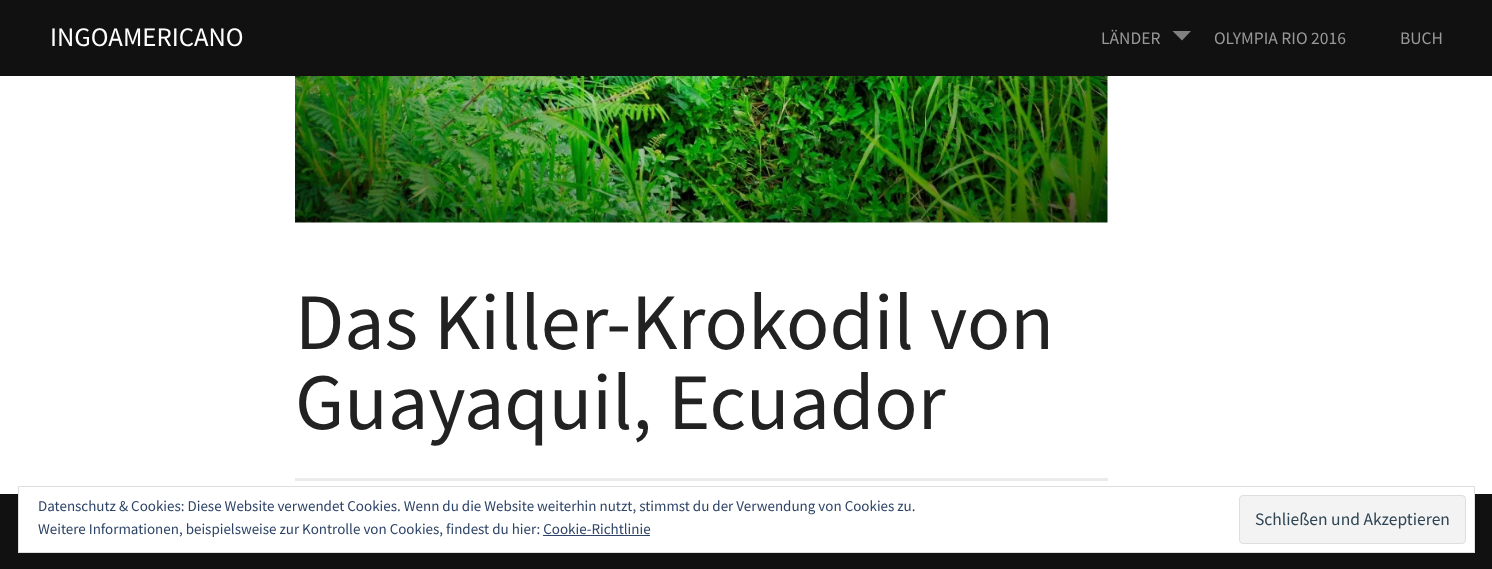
<!DOCTYPE html>
<meta charset="utf-8">
<style>body { margin: 0 } canvas { display: block }</style>
<canvas id="canvas" width="1492" height="569"></canvas>
<img id="img1" src="images/1.png" hidden>
<script>
window.onload = function () {
    const canvas = document.getElementById('canvas');
    const context = canvas.getContext('2d');
    context.miterLimit = 4;
    context.fontKerning = 'normal';

    context.fillStyle = 'rgb(255, 255, 255)';
    context.fillRect(0, 0, 1492, 569);
    context.fillStyle = 'rgb(17, 17, 17)';
    context.fillRect(0, 0, 1492, 76);
    context.fillStyle = 'rgb(128, 128, 128)';
    context.beginPath();
    context.moveTo(1172.5, 31);
    context.lineTo(1191, 31);
    context.lineTo(1182, 40.5);
    context.closePath();
    context.fill();
    context.drawImage(document.getElementById('img1'), 295, 76, 813, 147);
    context.fillStyle = 'rgb(235, 235, 235)';
    context.fillRect(295, 478, 813, 3);
    context.fillStyle = 'rgb(17, 17, 17)';
    context.fillRect(0, 494, 1492, 75);
    context.fillStyle = 'rgb(255, 255, 255)';
    context.fillRect(19, 494, 1455, 58);
    context.strokeStyle = 'rgb(222, 222, 222)';
    context.strokeRect(18.5, 486.5, 1456, 66);
    context.fillStyle = 'rgb(243, 243, 243)';
    context.beginPath();
    context.roundRect(1239.5, 495.5, 226, 48, 3.5);
    context.fill();
    context.stroke();
    context.fillStyle = 'rgb(46, 68, 103)';
    context.fillRect(543, 535, 107, 1);
    context.font = '26.75px Source Sans Pro';
    context.fillStyle = 'rgb(255, 255, 255)';
    context.fillText('INGOAMERICANO', 50, 46);
    context.font = '17.5px Source Sans Pro';
    context.fillStyle = 'rgb(153, 153, 153)';
    context.fillText('LÄNDER', 1101, 44);
    context.fillText('OLYMPIA RIO 2016', 1214, 44);
    context.fillText('BUCH', 1400, 44);
    context.font = '80px Source Sans Pro';
    context.fillStyle = 'rgb(34, 34, 34)';
    context.fillText('Das Killer-Krokodil von', 295, 349);
    context.fillText('Guayaquil, Ecuador', 295, 429);
    context.font = '15px Source Sans Pro';
    context.fillStyle = 'rgb(46, 68, 103)';
    context.fillText('Datenschutz & Cookies: Diese Website verwendet Cookies. Wenn du die Website weiterhin nutzt, stimmst du der Verwendung von Cookies zu.', 38, 511);
    context.font = '17.5px Source Sans Pro';
    context.fillStyle = 'rgb(46, 68, 83)';
    context.fillText('Schließen und Akzeptieren', 1255, 525);
    context.font = '15px Source Sans Pro';
    context.fillStyle = 'rgb(46, 68, 103)';
    context.fillText('Weitere Informationen, beispielsweise zur Kontrolle von Cookies, findest du hier: Cookie-Richtlinie', 38, 534);
};
</script>
